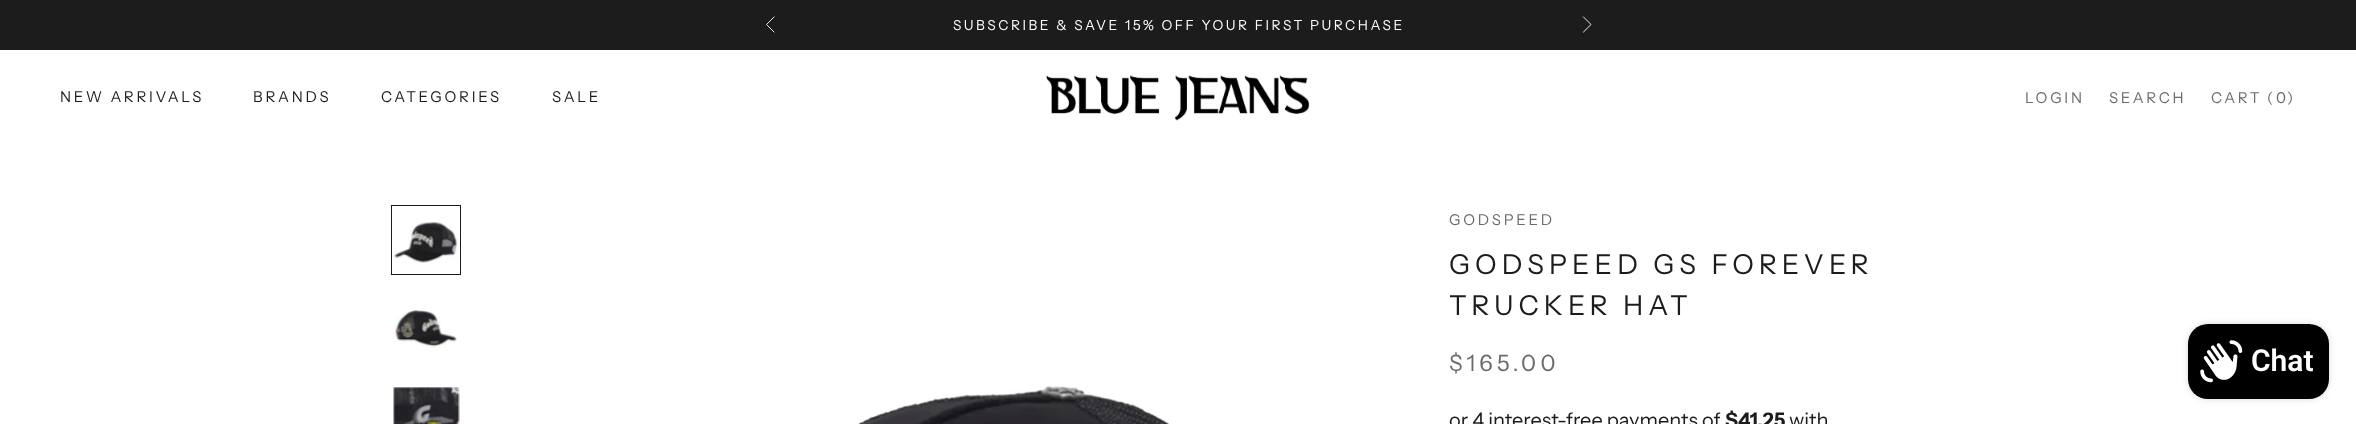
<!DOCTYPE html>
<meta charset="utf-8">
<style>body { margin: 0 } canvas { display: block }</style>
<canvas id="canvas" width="2356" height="424"></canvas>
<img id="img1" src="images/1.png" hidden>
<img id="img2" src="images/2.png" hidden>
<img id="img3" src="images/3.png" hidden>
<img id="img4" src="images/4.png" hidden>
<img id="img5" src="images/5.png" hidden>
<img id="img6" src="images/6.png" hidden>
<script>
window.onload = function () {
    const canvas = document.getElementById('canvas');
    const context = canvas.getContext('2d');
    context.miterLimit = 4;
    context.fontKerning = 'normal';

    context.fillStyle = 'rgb(255, 255, 255)';
    context.fillRect(0, 0, 2356, 424);
    context.fillStyle = 'rgb(28, 28, 28)';
    context.fillRect(0, 0, 2356, 50);
    context.beginPath();
    context.moveTo(774, 17);
    context.lineTo(766.5, 24.5);
    context.lineTo(774, 32);
    context.strokeStyle = 'rgb(255, 255, 255)';
    context.lineWidth = 0.9;
    context.lineCap = 'square';
    context.stroke();
    context.beginPath();
    context.moveTo(1583.5, 32);
    context.lineTo(1591, 24.5);
    context.lineTo(1583.5, 17);
    context.stroke();
    context.drawImage(document.getElementById('img1'), 1046, 75, 264, 46);
    context.strokeStyle = 'rgb(28, 28, 28)';
    context.lineWidth = 1;
    context.strokeRect(391.5, 205.5, 69, 69);
    context.drawImage(document.getElementById('img2'), 394, 222, 64, 41);
    context.drawImage(document.getElementById('img3'), 393, 310, 64, 38);
    context.drawImage(document.getElementById('img4'), 393, 387, 67, 37);
    context.drawImage(document.getElementById('img5'), 856, 386, 314, 38);
    context.fillStyle = 'rgba(0, 0, 0, 0.15)';
    context.filter = 'blur(3px)';
    context.beginPath();
    context.roundRect(2188, 324, 141, 75, 20);
    context.fill();
    context.filter = 'none';
    context.fillStyle = 'rgb(0, 0, 0)';
    context.beginPath();
    context.roundRect(2188, 324, 141, 75, 20);
    context.fill();
    context.drawImage(document.getElementById('img6'), 2200, 340, 43, 43);
    context.letterSpacing = '2.5px';
    context.font = '13.75px Instrument Sans';
    context.fillStyle = 'rgb(255, 255, 255)';
    context.fillText('SUBSCRIBE & SAVE 15% OFF YOUR FIRST PURCHASE', 953, 30);
    context.letterSpacing = '2.75px';
    context.font = '15px Instrument Sans';
    context.fillStyle = 'rgb(28, 28, 28)';
    context.fillText('NEW ARRIVALS', 60, 102);
    context.fillText('BRANDS', 253, 102);
    context.fillText('CATEGORIES', 381, 102);
    context.fillText('SALE', 552, 102);
    context.fillStyle = 'rgb(107, 107, 107)';
    context.fillText('LOGIN', 2025, 103);
    context.fillText('SEARCH', 2109, 103);
    context.wordSpacing = '-1px';
    context.fillText('CART (', 2211, 103);
    context.wordSpacing = '0px';
    context.fillText('0', 2276, 103);
    context.fillText(')', 2287, 103);
    context.fillText('GODSPEED', 1449, 225);
    context.letterSpacing = '5px';
    context.font = '27.5px Instrument Sans';
    context.fillStyle = 'rgb(28, 28, 28)';
    context.fillText('GODSPEED GS FOREVER', 1449, 274);
    context.fillText('TRUCKER HAT', 1449, 315);
    context.letterSpacing = '4px';
    context.font = '22.5px Instrument Sans';
    context.fillStyle = 'rgb(107, 107, 107)';
    context.fillText('$165.00', 1449, 371);
    context.letterSpacing = '0px';
    context.font = '20px Instrument Sans';
    context.fillStyle = 'rgb(28, 28, 28)';
    context.fillText('or 4 interest-free payments of', 1449, 427);
    context.font = 'bold 20px Instrument Sans';
    context.fillText('$41.25', 1725, 427);
    context.font = '20px Instrument Sans';
    context.fillText('with', 1789, 427);
    context.font = '600 30px Roboto';
    context.fillStyle = 'rgb(255, 255, 255)';
    context.fillText('Chat', 2251, 371);
};
</script>
